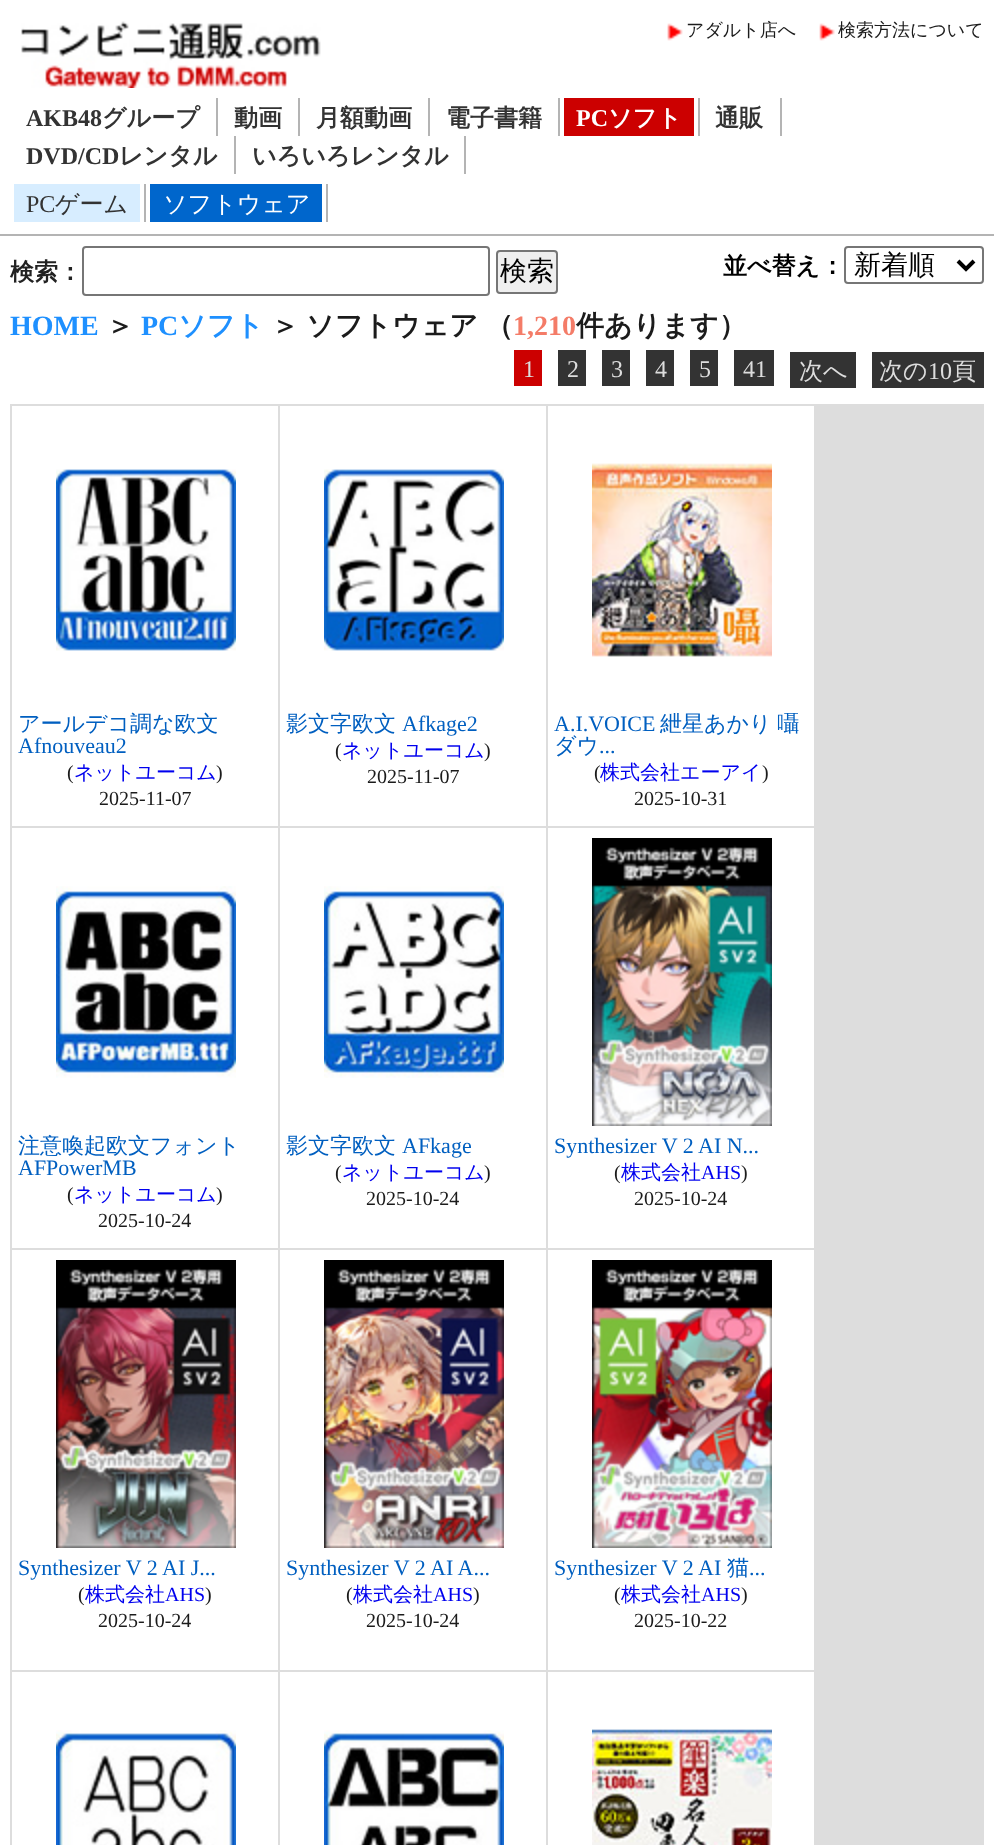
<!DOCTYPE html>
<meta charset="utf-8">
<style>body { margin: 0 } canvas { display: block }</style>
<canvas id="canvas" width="994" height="1845"></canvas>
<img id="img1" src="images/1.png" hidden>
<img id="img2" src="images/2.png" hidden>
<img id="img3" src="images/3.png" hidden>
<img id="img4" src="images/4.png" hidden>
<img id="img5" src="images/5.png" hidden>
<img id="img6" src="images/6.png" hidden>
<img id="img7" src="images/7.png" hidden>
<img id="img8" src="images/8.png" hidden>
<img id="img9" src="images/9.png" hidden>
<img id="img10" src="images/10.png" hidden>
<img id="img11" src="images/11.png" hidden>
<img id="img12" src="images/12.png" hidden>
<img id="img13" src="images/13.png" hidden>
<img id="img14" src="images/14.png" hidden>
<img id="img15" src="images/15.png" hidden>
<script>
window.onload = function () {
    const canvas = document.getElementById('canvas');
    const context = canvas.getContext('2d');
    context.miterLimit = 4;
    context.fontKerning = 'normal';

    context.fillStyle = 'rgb(255, 255, 255)';
    context.fillRect(0, 0, 994, 1845);
    context.fillStyle = 'rgb(180, 180, 180)';
    context.fillRect(0, 234, 994, 2);
    context.drawImage(document.getElementById('img1'), 21, 21, 300, 67);
    context.drawImage(document.getElementById('img2'), 667, 23, 16, 18);
    context.drawImage(document.getElementById('img3'), 819, 23, 16, 18);
    context.fillRect(216, 98, 2, 38);
    context.fillRect(298, 98, 2, 38);
    context.fillRect(428, 98, 2, 38);
    context.fillRect(558, 98, 2, 38);
    context.fillRect(698, 98, 2, 38);
    context.fillStyle = 'rgb(204, 0, 0)';
    context.fillRect(564, 98, 130, 38);
    context.fillStyle = 'rgb(180, 180, 180)';
    context.fillRect(780, 98, 2, 38);
    context.fillRect(234, 136, 2, 38);
    context.fillRect(464, 136, 2, 38);
    context.fillRect(144, 184, 2, 38);
    context.fillStyle = 'rgb(215, 237, 255)';
    context.fillRect(14, 184, 126, 38);
    context.fillStyle = 'rgb(180, 180, 180)';
    context.fillRect(326, 184, 2, 38);
    context.fillStyle = 'rgb(0, 102, 204)';
    context.fillRect(150, 184, 172, 38);
    context.beginPath();
    context.roundRect(83, 247, 406, 48, 3);
    context.strokeStyle = 'rgb(118, 118, 118)';
    context.lineWidth = 2;
    context.stroke();
    context.fillStyle = 'rgb(239, 239, 239)';
    context.beginPath();
    context.roundRect(497, 251, 60, 42, 3);
    context.fill();
    context.stroke();
    context.beginPath();
    context.roundRect(845, 247, 138, 36, 3);
    context.stroke();
    context.beginPath();
    context.moveTo(958, 261);
    context.lineTo(966, 269);
    context.lineTo(974, 261);
    context.strokeStyle = 'rgb(0, 0, 0)';
    context.lineWidth = 4;
    context.stroke();
    context.fillStyle = 'rgb(204, 0, 0)';
    context.fillRect(514, 350, 28, 36);
    context.fillStyle = 'rgb(51, 51, 51)';
    context.fillRect(558, 350, 28, 36);
    context.fillRect(602, 350, 28, 36);
    context.fillRect(646, 350, 28, 36);
    context.fillRect(690, 350, 28, 36);
    context.fillRect(734, 350, 40, 36);
    context.fillRect(790, 352, 66, 36);
    context.fillRect(872, 352, 112, 36);
    context.fillStyle = 'rgb(221, 221, 221)';
    context.fillRect(10, 404, 974, 1441);
    context.fillStyle = 'rgb(255, 255, 255)';
    context.fillRect(12, 406, 266, 420);
    context.drawImage(document.getElementById('img4'), 56, 469, 180, 182);
    context.fillRect(280, 406, 266, 420);
    context.drawImage(document.getElementById('img5'), 324, 469, 180, 182);
    context.fillRect(548, 406, 266, 420);
    context.drawImage(document.getElementById('img6'), 592, 463, 180, 194);
    context.fillRect(12, 828, 266, 420);
    context.drawImage(document.getElementById('img7'), 56, 886, 180, 192);
    context.fillRect(280, 828, 266, 420);
    context.drawImage(document.getElementById('img8'), 324, 886, 180, 192);
    context.fillRect(548, 828, 266, 420);
    context.drawImage(document.getElementById('img9'), 592, 838, 180, 288);
    context.fillRect(12, 1250, 266, 420);
    context.drawImage(document.getElementById('img10'), 56, 1260, 180, 288);
    context.fillRect(280, 1250, 266, 420);
    context.drawImage(document.getElementById('img11'), 324, 1260, 180, 288);
    context.fillRect(548, 1250, 266, 420);
    context.drawImage(document.getElementById('img12'), 592, 1260, 180, 288);
    context.fillRect(12, 1672, 266, 173);
    context.drawImage(document.getElementById('img13'), 56, 1730, 180, 115);
    context.fillRect(280, 1672, 266, 173);
    context.drawImage(document.getElementById('img14'), 324, 1730, 180, 115);
    context.fillRect(548, 1672, 266, 173);
    context.drawImage(document.getElementById('img15'), 592, 1729, 180, 116);
    context.font = '500 18px WenQuanYi Zen Hei';
    context.fillStyle = 'rgb(27, 27, 27)';
    context.fillText('アダルト店へ', 686, 36);
    context.fillText('検索方法について', 838, 36);
    context.font = 'bold 24px Liberation Serif';
    context.fillStyle = 'rgb(51, 51, 51)';
    context.fillText('AKB48', 26, 126);
    context.font = 'bold 24px WenQuanYi Zen Hei';
    context.fillText('グループ', 102, 126);
    context.fillText('動画', 234, 126);
    context.fillText('月額動画', 316, 126);
    context.fillText('電子書籍', 446, 126);
    context.font = 'bold 24px Liberation Serif';
    context.fillStyle = 'rgb(255, 255, 255)';
    context.fillText('PC', 576, 126);
    context.font = 'bold 24px WenQuanYi Zen Hei';
    context.fillText('ソフト', 608, 126);
    context.fillStyle = 'rgb(51, 51, 51)';
    context.fillText('通販', 715, 126);
    context.font = 'bold 24px Liberation Serif';
    context.fillText('DVD/CD', 26, 164);
    context.font = 'bold 24px WenQuanYi Zen Hei';
    context.fillText('レンタル', 119, 164);
    context.fillText('いろいろレンタル', 252, 164);
    context.font = '24px Liberation Serif';
    context.fillText('PC', 26, 212);
    context.font = '500 24px WenQuanYi Zen Hei';
    context.fillText('ゲーム', 55, 212);
    context.fillStyle = 'rgb(255, 255, 255)';
    context.fillText('ソフトウェア', 163, 212);
    context.font = 'bold 24px WenQuanYi Zen Hei';
    context.fillStyle = 'rgb(34, 34, 34)';
    context.fillText('検索：', 10, 280);
    context.font = '500 27px WenQuanYi Zen Hei';
    context.fillStyle = 'rgb(0, 0, 0)';
    context.fillText('検索', 500, 280);
    context.font = 'bold 24px WenQuanYi Zen Hei';
    context.fillText('並べ替え：', 723, 274);
    context.font = '500 27px WenQuanYi Zen Hei';
    context.fillText('新着順', 854, 274);
    context.font = 'bold 28px Liberation Serif';
    context.fillStyle = 'rgb(30, 144, 255)';
    context.fillText('HOME', 10, 335);
    context.font = 'bold 28px WenQuanYi Zen Hei';
    context.fillStyle = 'rgb(27, 27, 27)';
    context.fillText('＞', 106, 335);
    context.font = 'bold 28px Liberation Serif';
    context.fillStyle = 'rgb(30, 144, 255)';
    context.fillText('PC', 141, 335);
    context.font = 'bold 28px WenQuanYi Zen Hei';
    context.fillText('ソフト', 178, 335);
    context.fillStyle = 'rgb(27, 27, 27)';
    context.fillText('＞', 271, 335);
    context.wordSpacing = '-1px';
    context.fillText('ソフトウェア （', 306, 335);
    context.wordSpacing = '0px';
    context.font = 'bold 28px Liberation Serif';
    context.fillStyle = 'rgb(244, 124, 104)';
    context.fillText('1,210', 513, 335);
    context.font = 'bold 28px WenQuanYi Zen Hei';
    context.fillStyle = 'rgb(27, 27, 27)';
    context.fillText('件あります）', 576, 335);
    context.font = '24px Liberation Serif';
    context.fillStyle = 'rgb(221, 221, 221)';
    context.fillText('1', 523, 377);
    context.fillText('2', 567, 377);
    context.fillText('3', 611, 377);
    context.fillText('4', 655, 377);
    context.fillText('5', 699, 377);
    context.fillText('41', 743, 377);
    context.font = '500 24px WenQuanYi Zen Hei';
    context.fillText('次へ', 799, 379);
    context.fillText('次の', 879, 379);
    context.font = '24px Liberation Serif';
    context.fillText('10', 928, 379);
    context.font = '500 24px WenQuanYi Zen Hei';
    context.fillText('頁', 952, 379);
    context.font = '500 22px WenQuanYi Zen Hei';
    context.fillStyle = 'rgb(0, 95, 192)';
    context.fillText('アールデコ調な欧文', 18, 731);
    context.font = '22px Liberation Serif';
    context.fillText('Afnouveau2', 18, 753);
    context.font = '20px Liberation Serif';
    context.fillStyle = 'rgb(27, 27, 27)';
    context.fillText('(', 67, 779);
    context.font = '500 20px WenQuanYi Zen Hei';
    context.fillStyle = 'rgb(0, 0, 238)';
    context.fillText('ネットユーコム', 74, 779);
    context.font = '20px Liberation Serif';
    context.fillStyle = 'rgb(27, 27, 27)';
    context.fillText(')', 216, 779);
    context.fillText('2025-11-07', 99, 805);
    context.font = '500 22px WenQuanYi Zen Hei';
    context.fillStyle = 'rgb(0, 95, 192)';
    context.fillText('影文字欧文', 286, 731);
    context.font = '22px Liberation Serif';
    context.fillText('Afkage2', 402, 731);
    context.font = '20px Liberation Serif';
    context.fillStyle = 'rgb(27, 27, 27)';
    context.fillText('(', 335, 757);
    context.font = '500 20px WenQuanYi Zen Hei';
    context.fillStyle = 'rgb(0, 0, 238)';
    context.fillText('ネットユーコム', 342, 757);
    context.font = '20px Liberation Serif';
    context.fillStyle = 'rgb(27, 27, 27)';
    context.fillText(')', 484, 757);
    context.fillText('2025-11-07', 367, 783);
    context.font = '22px Liberation Serif';
    context.fillStyle = 'rgb(0, 95, 192)';
    context.fillText('A.I.VOICE', 554, 731);
    context.wordSpacing = '-1px';
    context.font = '500 22px WenQuanYi Zen Hei';
    context.fillText('紲星あかり 囁', 660, 731);
    context.wordSpacing = '0px';
    context.fillText('ダウ', 554, 753);
    context.font = '22px Liberation Serif';
    context.fillText('...', 599, 753);
    context.font = '20px Liberation Serif';
    context.fillStyle = 'rgb(27, 27, 27)';
    context.fillText('(', 594, 779);
    context.font = '500 20px WenQuanYi Zen Hei';
    context.fillStyle = 'rgb(0, 0, 238)';
    context.fillText('株式会社エーアイ', 600, 779);
    context.font = '20px Liberation Serif';
    context.fillStyle = 'rgb(27, 27, 27)';
    context.fillText(')', 762, 779);
    context.fillText('2025-10-31', 634, 805);
    context.font = '500 22px WenQuanYi Zen Hei';
    context.fillStyle = 'rgb(0, 95, 192)';
    context.fillText('注意喚起欧文フォント', 18, 1153);
    context.font = '22px Liberation Serif';
    context.fillText('AFPowerMB', 18, 1175);
    context.font = '20px Liberation Serif';
    context.fillStyle = 'rgb(27, 27, 27)';
    context.fillText('(', 67, 1201);
    context.font = '500 20px WenQuanYi Zen Hei';
    context.fillStyle = 'rgb(0, 0, 238)';
    context.fillText('ネットユーコム', 74, 1201);
    context.font = '20px Liberation Serif';
    context.fillStyle = 'rgb(27, 27, 27)';
    context.fillText(')', 216, 1201);
    context.fillText('2025-10-24', 98, 1227);
    context.font = '500 22px WenQuanYi Zen Hei';
    context.fillStyle = 'rgb(0, 95, 192)';
    context.fillText('影文字欧文', 286, 1153);
    context.font = '22px Liberation Serif';
    context.fillText('AFkage', 402, 1153);
    context.font = '20px Liberation Serif';
    context.fillStyle = 'rgb(27, 27, 27)';
    context.fillText('(', 335, 1179);
    context.font = '500 20px WenQuanYi Zen Hei';
    context.fillStyle = 'rgb(0, 0, 238)';
    context.fillText('ネットユーコム', 342, 1179);
    context.font = '20px Liberation Serif';
    context.fillStyle = 'rgb(27, 27, 27)';
    context.fillText(')', 484, 1179);
    context.fillText('2025-10-24', 366, 1205);
    context.font = '22px Liberation Serif';
    context.fillStyle = 'rgb(0, 95, 192)';
    context.fillText('Synthesizer V 2 AI N...', 554, 1153);
    context.font = '20px Liberation Serif';
    context.fillStyle = 'rgb(27, 27, 27)';
    context.fillText('(', 614, 1179);
    context.font = '500 20px WenQuanYi Zen Hei';
    context.fillStyle = 'rgb(0, 0, 238)';
    context.fillText('株式会社', 621, 1179);
    context.font = '20px Liberation Serif';
    context.fillText('AHS', 701, 1179);
    context.fillStyle = 'rgb(27, 27, 27)';
    context.fillText(')', 741, 1179);
    context.fillText('2025-10-24', 634, 1205);
    context.font = '22px Liberation Serif';
    context.fillStyle = 'rgb(0, 95, 192)';
    context.fillText('Synthesizer V 2 AI J...', 18, 1575);
    context.font = '20px Liberation Serif';
    context.fillStyle = 'rgb(27, 27, 27)';
    context.fillText('(', 78, 1601);
    context.font = '500 20px WenQuanYi Zen Hei';
    context.fillStyle = 'rgb(0, 0, 238)';
    context.fillText('株式会社', 85, 1601);
    context.font = '20px Liberation Serif';
    context.fillText('AHS', 165, 1601);
    context.fillStyle = 'rgb(27, 27, 27)';
    context.fillText(')', 205, 1601);
    context.fillText('2025-10-24', 98, 1627);
    context.font = '22px Liberation Serif';
    context.fillStyle = 'rgb(0, 95, 192)';
    context.fillText('Synthesizer V 2 AI A...', 286, 1575);
    context.font = '20px Liberation Serif';
    context.fillStyle = 'rgb(27, 27, 27)';
    context.fillText('(', 346, 1601);
    context.font = '500 20px WenQuanYi Zen Hei';
    context.fillStyle = 'rgb(0, 0, 238)';
    context.fillText('株式会社', 353, 1601);
    context.font = '20px Liberation Serif';
    context.fillText('AHS', 433, 1601);
    context.fillStyle = 'rgb(27, 27, 27)';
    context.fillText(')', 473, 1601);
    context.fillText('2025-10-24', 366, 1627);
    context.font = '22px Liberation Serif';
    context.fillStyle = 'rgb(0, 95, 192)';
    context.fillText('Synthesizer V 2 AI', 554, 1575);
    context.font = '500 22px WenQuanYi Zen Hei';
    context.fillText('猫', 727, 1575);
    context.font = '22px Liberation Serif';
    context.fillText('...', 749, 1575);
    context.font = '20px Liberation Serif';
    context.fillStyle = 'rgb(27, 27, 27)';
    context.fillText('(', 614, 1601);
    context.font = '500 20px WenQuanYi Zen Hei';
    context.fillStyle = 'rgb(0, 0, 238)';
    context.fillText('株式会社', 621, 1601);
    context.font = '20px Liberation Serif';
    context.fillText('AHS', 701, 1601);
    context.fillStyle = 'rgb(27, 27, 27)';
    context.fillText(')', 741, 1601);
    context.fillText('2025-10-22', 634, 1627);
};
</script>
